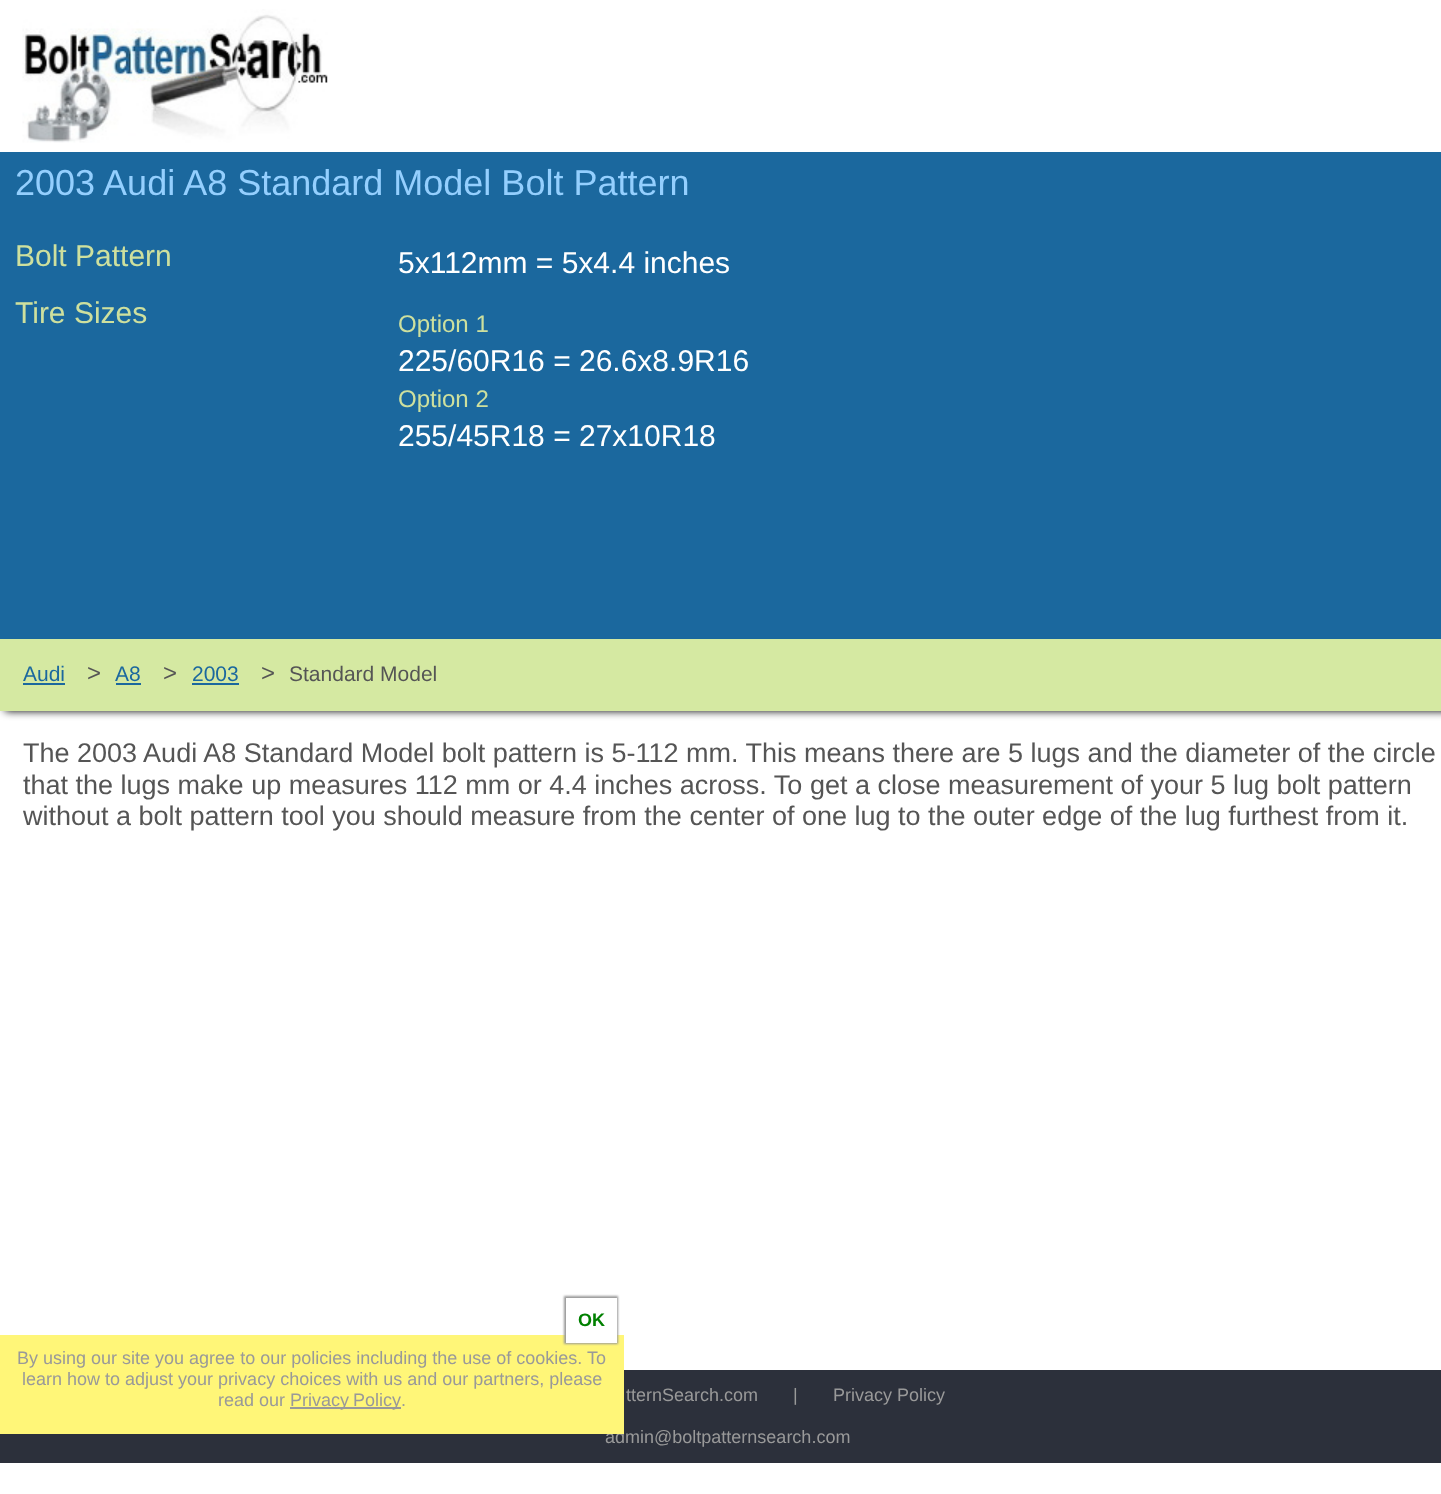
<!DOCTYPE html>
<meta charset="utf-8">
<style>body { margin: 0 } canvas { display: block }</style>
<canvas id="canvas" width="1441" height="1494"></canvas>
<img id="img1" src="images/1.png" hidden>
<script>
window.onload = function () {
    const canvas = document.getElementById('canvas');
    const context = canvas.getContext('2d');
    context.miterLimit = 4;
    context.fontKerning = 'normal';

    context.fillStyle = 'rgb(255, 255, 255)';
    context.fillRect(0, 0, 1441, 1494);
    context.drawImage(document.getElementById('img1'), 22, 9, 306, 134);
    context.fillStyle = 'rgb(27, 104, 158)';
    context.fillRect(0, 152, 1441, 487);
    context.fillStyle = 'rgb(0, 0, 0)';
    context.filter = 'blur(4px)';
    context.beginPath();
    context.rect(5, 648, 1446, 63);
    context.fill();
    context.filter = 'none';
    context.fillStyle = 'rgb(213, 233, 162)';
    context.fillRect(0, 639, 1441, 72);
    context.fillStyle = 'rgb(27, 104, 158)';
    context.fillRect(23, 683, 42, 2);
    context.fillRect(116, 683, 25, 2);
    context.fillRect(192, 683, 47, 2);
    context.fillStyle = 'rgb(44, 48, 59)';
    context.fillRect(0, 1370, 1441, 93);
    context.font = '36px Liberation Sans';
    context.fillStyle = 'rgb(148, 207, 254)';
    context.fillText('2003 Audi A8 Standard Model Bolt Pattern', 15, 195);
    context.font = '30px Liberation Sans';
    context.fillStyle = 'rgb(206, 224, 158)';
    context.fillText('Bolt Pattern', 15, 266);
    context.fillStyle = 'rgb(255, 255, 255)';
    context.fillText('5x112mm = 5x4.4 inches', 398, 273);
    context.fillStyle = 'rgb(206, 224, 158)';
    context.fillText('Tire Sizes', 15, 323);
    context.font = '24px Liberation Sans';
    context.fillText('Option 1', 398, 332);
    context.font = '30px Liberation Sans';
    context.fillStyle = 'rgb(255, 255, 255)';
    context.fillText('225/60R16 = 26.6x8.9R16', 398, 371);
    context.font = '24px Liberation Sans';
    context.fillStyle = 'rgb(206, 224, 158)';
    context.fillText('Option 2', 398, 407);
    context.font = '30px Liberation Sans';
    context.fillStyle = 'rgb(255, 255, 255)';
    context.fillText('255/45R18 = 27x10R18', 398, 446);
    context.font = '21px Liberation Sans';
    context.fillStyle = 'rgb(27, 104, 158)';
    context.fillText('Audi', 23, 681);
    context.font = '24px Liberation Sans';
    context.fillStyle = 'rgb(85, 85, 85)';
    context.fillText('>', 87, 681);
    context.font = '21px Liberation Sans';
    context.fillStyle = 'rgb(27, 104, 158)';
    context.fillText('A8', 115, 681);
    context.font = '24px Liberation Sans';
    context.fillStyle = 'rgb(85, 85, 85)';
    context.fillText('>', 163, 681);
    context.font = '21px Liberation Sans';
    context.fillStyle = 'rgb(27, 104, 158)';
    context.fillText('2003', 192, 681);
    context.font = '24px Liberation Sans';
    context.fillStyle = 'rgb(85, 85, 85)';
    context.fillText('>', 261, 681);
    context.font = '21px Liberation Sans';
    context.fillText('Standard Model', 289, 681);
    context.font = '27px Liberation Sans';
    context.fillText('The 2003 Audi A8 Standard Model bolt pattern is 5-112 mm. This means there are 5 lugs and the diameter of the circle', 23, 762);
    context.fillText('that the lugs make up measures 112 mm or 4.4 inches across. To get a close measurement of your 5 lug bolt pattern', 23, 794);
    context.fillText('without a bolt pattern tool you should measure from the center of one lug to the outer edge of the lug furthest from it.', 23, 825);
    context.font = '18px Liberation Sans';
    context.fillStyle = 'rgb(153, 153, 153)';
    context.fillText('tternSearch.com       |', 626, 1401);
    context.fillText('Privacy Policy', 833, 1401);
    context.fillText('admin@boltpatternsearch.com', 605, 1443);
    context.fillStyle = 'rgb(255, 246, 120)';
    context.fillRect(0, 1335, 624, 99);
    context.fillStyle = 'rgb(153, 153, 153)';
    context.filter = 'blur(1px)';
    context.beginPath();
    context.rect(564, 1296, 54, 48);
    context.fill();
    context.filter = 'none';
    context.fillStyle = 'rgb(255, 255, 255)';
    context.fillRect(566, 1298, 51, 45);
    context.font = 'bold 18px Liberation Sans';
    context.fillStyle = 'rgb(0, 128, 0)';
    context.fillText('OK', 578, 1326);
    context.font = '18px Liberation Sans';
    context.fillStyle = 'rgb(153, 153, 153)';
    context.fillText('.', 401, 1406);
    context.fillRect(290, 1407, 111, 2);
    context.wordSpacing = '-1px';
    context.fillText('Privacy Policy', 290, 1406);
    context.wordSpacing = '0px';
    context.fillText('read our', 218, 1406);
    context.fillText('learn how to adjust your privacy choices with us and our partners, please', 22, 1385);
    context.fillText('By using our site you agree to our policies including the use of cookies. To', 17, 1364);
};
</script>
